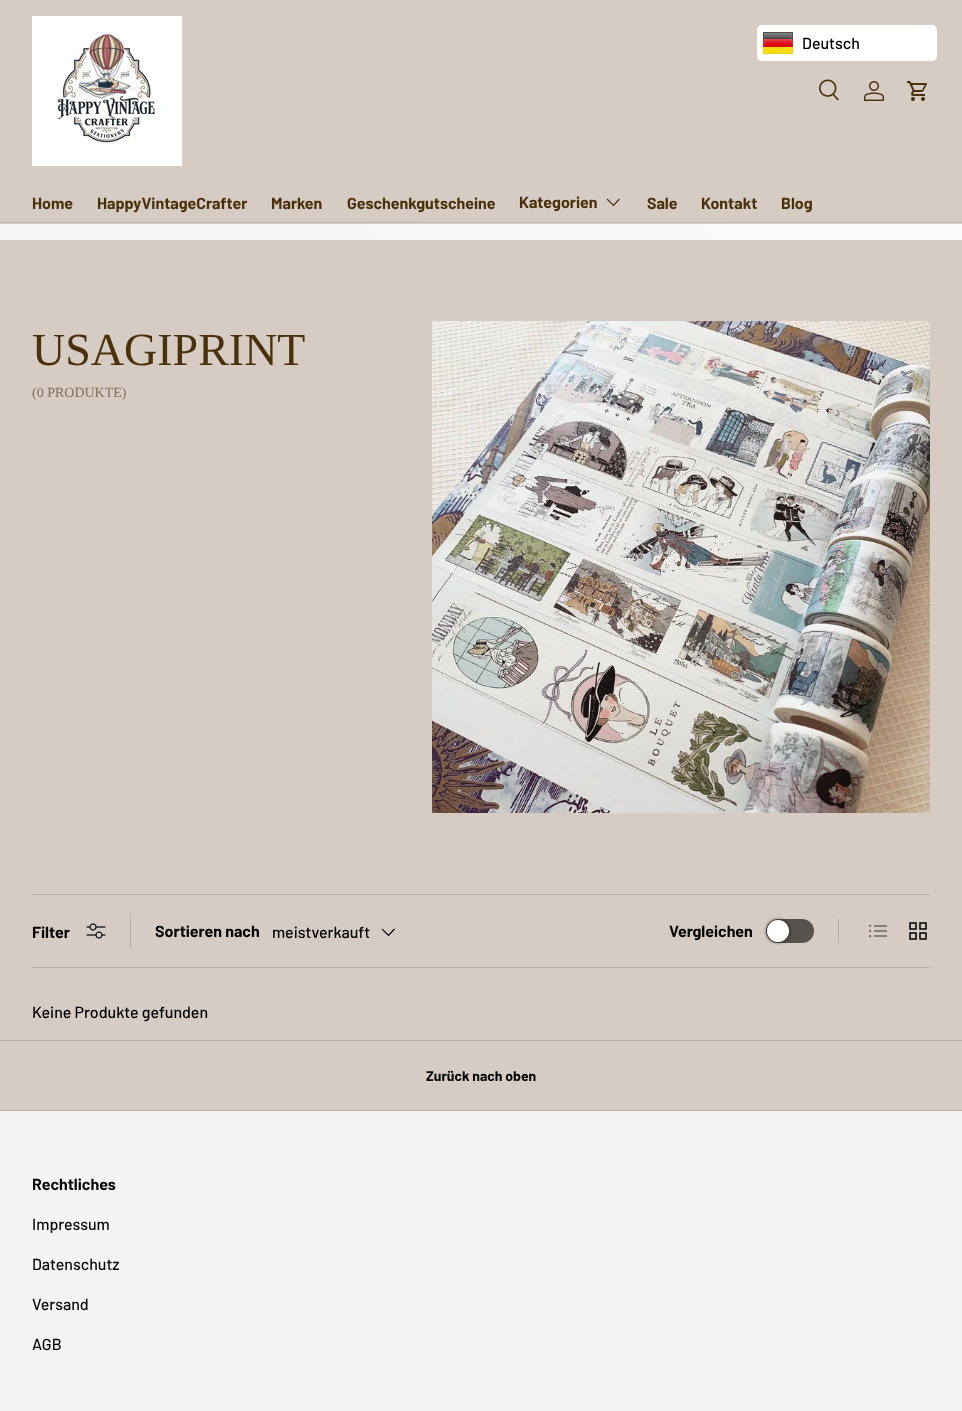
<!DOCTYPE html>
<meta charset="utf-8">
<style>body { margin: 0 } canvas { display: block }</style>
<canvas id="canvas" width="962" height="1411"></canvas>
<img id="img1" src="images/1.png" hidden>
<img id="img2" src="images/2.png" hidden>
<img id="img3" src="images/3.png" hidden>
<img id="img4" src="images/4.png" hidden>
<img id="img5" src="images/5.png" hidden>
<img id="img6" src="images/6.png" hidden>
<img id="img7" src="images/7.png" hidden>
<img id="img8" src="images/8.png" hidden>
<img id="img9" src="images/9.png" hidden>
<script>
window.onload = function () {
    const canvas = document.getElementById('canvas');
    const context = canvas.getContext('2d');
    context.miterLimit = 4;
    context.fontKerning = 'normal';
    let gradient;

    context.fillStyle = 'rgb(214, 204, 196)';
    context.fillRect(0, 0, 962, 1411);
    context.fillStyle = 'rgb(255, 255, 255)';
    context.beginPath();
    context.roundRect(757, 25, 180, 36, 5);
    context.fill();
    context.drawImage(document.getElementById('img1'), 763, 32, 30, 22);
    context.fillStyle = 'rgb(193, 181, 168)';
    context.fillRect(0, 222, 962, 1);
    context.drawImage(document.getElementById('img2'), 32, 16, 150, 150);
    context.drawImage(document.getElementById('img3'), 819, 79, 20, 22);
    context.drawImage(document.getElementById('img4'), 864, 81, 20, 20);
    context.drawImage(document.getElementById('img5'), 907, 81, 20, 20);
    context.beginPath();
    context.moveTo(619.5, 199);
    context.lineTo(613.5, 205.5);
    context.lineTo(607, 199);
    context.strokeStyle = 'rgb(75, 48, 12)';
    context.lineWidth = 1.2;
    context.stroke();
    gradient = context.createLinearGradient(228, 460, 734, -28);
    gradient.addColorStop(0.13, 'rgb(208, 208, 208)');
    gradient.addColorStop(0.86, 'rgb(212, 212, 212)');
    context.fillStyle = gradient;
    context.fillRect(0, 223, 962, 1);
    gradient = context.createLinearGradient(228, 476, 734, -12);
    gradient.addColorStop(0.13, 'rgb(245, 245, 245)');
    gradient.addColorStop(0.86, 'rgb(249, 249, 249)');
    context.fillStyle = gradient;
    context.fillRect(0, 224, 962, 16);
    context.drawImage(document.getElementById('img6'), 432, 321, 498, 492);
    context.fillStyle = 'rgb(182, 173, 167)';
    context.fillRect(32, 894, 898, 1);
    context.fillRect(32, 967, 898, 1);
    context.drawImage(document.getElementById('img7'), 86, 923, 20, 16);
    context.fillRect(130, 914, 1, 35);
    context.beginPath();
    context.moveTo(394.5, 929);
    context.lineTo(388.5, 935.5);
    context.lineTo(382, 929);
    context.strokeStyle = 'rgb(0, 0, 0)';
    context.stroke();
    context.fillStyle = 'rgb(86, 82, 78)';
    context.beginPath();
    context.roundRect(766, 919, 48, 24, 12);
    context.fill();
    context.fillStyle = 'rgba(0, 0, 0, 0.25)';
    context.filter = 'blur(1px)';
    context.beginPath();
    context.roundRect(765, 918, 26, 26, 13);
    context.fill();
    context.filter = 'none';
    context.fillStyle = 'rgb(255, 255, 255)';
    context.beginPath();
    context.arc(778, 931, 11, 0, 2 * Math.PI);
    context.fill();
    context.fillStyle = 'rgb(182, 173, 167)';
    context.fillRect(838, 919, 1, 24);
    context.drawImage(document.getElementById('img8'), 869, 924, 18, 14);
    context.drawImage(document.getElementById('img9'), 909, 922, 18, 18);
    context.fillRect(0, 1040, 962, 1);
    context.fillRect(0, 1110, 962, 1);
    context.fillStyle = 'rgb(244, 244, 244)';
    context.fillRect(0, 1111, 962, 300);
    context.font = '500 16px Barlow';
    context.fillStyle = 'rgb(0, 0, 0)';
    context.fillText('Deutsch', 802, 49);
    context.font = 'bold 16px Barlow';
    context.fillStyle = 'rgb(75, 48, 12)';
    context.fillText('Home', 32, 209);
    context.fillText('HappyVintageCrafter', 97, 209);
    context.fillText('Marken', 271, 209);
    context.fillText('Geschenkgutscheine', 347, 209);
    context.fillText('Kategorien', 519, 208);
    context.fillText('Sale', 647, 209);
    context.fillText('Kontakt', 701, 209);
    context.fillText('Blog', 781, 209);
    context.font = '46px Liberation Serif';
    context.fillText('USAGIPRINT', 32, 365);
    context.font = '14px Liberation Serif';
    context.fillStyle = 'rgb(131, 110, 86)';
    context.fillText('(0 PRODUKTE)', 32, 397);
    context.font = 'bold 16px Barlow';
    context.fillStyle = 'rgb(0, 0, 0)';
    context.fillText('Filter', 32, 938);
    context.fillText('Sortieren nach', 155, 937);
    context.font = '500 16px Barlow';
    context.fillText('meistverkauft', 272, 938);
    context.font = 'bold 16px Barlow';
    context.fillText('Vergleichen', 669, 937);
    context.font = '500 16px Barlow';
    context.fillText('Keine Produkte gefunden', 32, 1018);
    context.font = 'bold 14px Barlow';
    context.fillText('Zurück nach oben', 426, 1081);
    context.font = 'bold 16px Barlow';
    context.fillStyle = 'rgb(7, 7, 7)';
    context.fillText('Rechtliches', 32, 1190);
    context.font = '500 16px Barlow';
    context.fillText('Impressum', 32, 1230);
    context.fillText('Datenschutz', 32, 1270);
    context.fillText('Versand', 32, 1310);
    context.fillText('AGB', 32, 1350);
};
</script>
